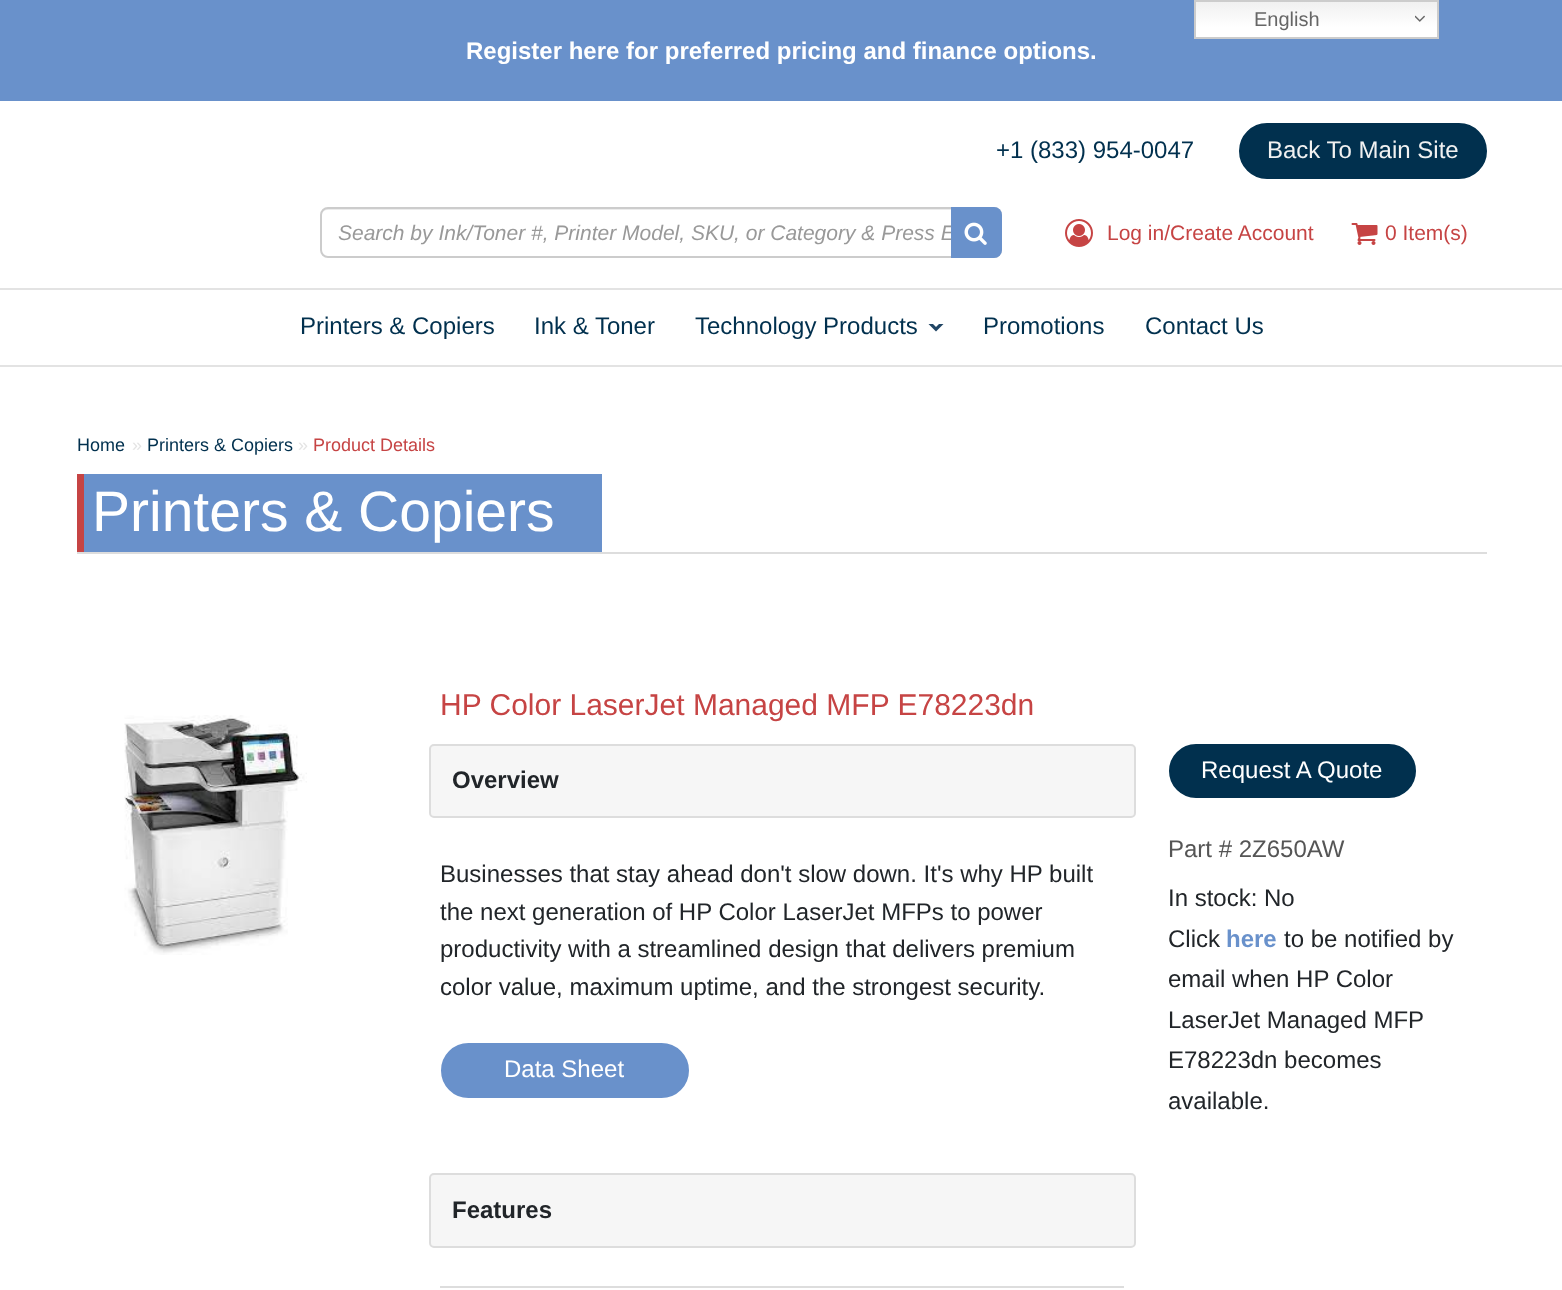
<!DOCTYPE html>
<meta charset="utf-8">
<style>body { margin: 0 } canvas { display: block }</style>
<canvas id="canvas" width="1562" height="1290"></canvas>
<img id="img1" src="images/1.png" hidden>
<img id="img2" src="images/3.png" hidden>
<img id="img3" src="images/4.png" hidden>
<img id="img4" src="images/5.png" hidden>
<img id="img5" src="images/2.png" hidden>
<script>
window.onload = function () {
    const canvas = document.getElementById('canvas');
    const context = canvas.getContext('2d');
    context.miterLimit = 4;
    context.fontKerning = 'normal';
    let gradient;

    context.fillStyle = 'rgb(255, 255, 255)';
    context.fillRect(0, 0, 1562, 1290);
    context.fillStyle = 'rgb(105, 145, 203)';
    context.fillRect(0, 0, 1562, 101);
    gradient = context.createLinearGradient(1316, 0, 1316, 39);
    gradient.addColorStop(0, 'rgb(239, 239, 239)');
    gradient.addColorStop(0.7, 'rgb(255, 255, 255)');
    context.fillStyle = gradient;
    context.fillRect(1196, 2, 241, 35);
    context.strokeStyle = 'rgb(204, 204, 204)';
    context.lineWidth = 2;
    context.strokeRect(1195, 1, 243, 37);
    context.drawImage(document.getElementById('img1'), 1415, 15, 10, 7);
    context.fillStyle = 'rgb(1, 48, 78)';
    context.beginPath();
    context.roundRect(1240, 124, 246, 54, 27);
    context.fill();
    context.strokeStyle = 'rgb(1, 48, 78)';
    context.stroke();
    context.fillStyle = 'rgb(236, 236, 236)';
    context.beginPath();
    context.moveTo(327, 210);
    context.lineTo(994, 210);
    context.bezierCurveTo(998, 210, 1000, 213, 1000, 216);
    context.lineTo(1000, 252);
    context.bezierCurveTo(1000, 253, 1000, 254, 999, 255);
    context.bezierCurveTo(1000, 254, 1001, 253, 1001, 251);
    context.lineTo(1001, 215);
    context.bezierCurveTo(1001, 212, 998, 209, 995, 209);
    context.lineTo(327, 209);
    context.bezierCurveTo(324, 209, 321, 212, 321, 215);
    context.lineTo(321, 216);
    context.bezierCurveTo(321, 213, 324, 210, 327, 210);
    context.closePath();
    context.fill();
    context.beginPath();
    context.roundRect(321, 208, 680, 49, 7);
    context.strokeStyle = 'rgb(204, 204, 204)';
    context.stroke();
    context.drawImage(document.getElementById('img2'), 1065, 219, 28, 28);
    context.drawImage(document.getElementById('img3'), 1351, 223, 27, 22);
    context.fillStyle = 'rgb(227, 227, 227)';
    context.fillRect(0, 288, 1562, 2);
    context.fillRect(0, 365, 1562, 2);
    context.fillStyle = 'rgb(33, 70, 101)';
    context.beginPath();
    context.moveTo(928.5, 324);
    context.lineTo(943.5, 324);
    context.lineTo(936, 331.5);
    context.closePath();
    context.fill();
    context.fillStyle = 'rgb(255, 255, 255)';
    context.beginPath();
    context.moveTo(928.5, 319.5);
    context.lineTo(943.5, 319.5);
    context.lineTo(936, 327);
    context.closePath();
    context.fill();
    context.fillStyle = 'rgb(105, 145, 203)';
    context.fillRect(84, 474, 518, 78);
    context.fillStyle = 'rgb(198, 68, 68)';
    context.fillRect(77, 474, 7, 78);
    context.fillStyle = 'rgb(221, 221, 221)';
    context.fillRect(77, 552, 1410, 2);
    context.drawImage(document.getElementById('img4'), 124, 715, 183, 240);
    context.fillStyle = 'rgb(246, 246, 246)';
    context.beginPath();
    context.roundRect(430, 745, 705, 72, 4);
    context.fill();
    context.strokeStyle = 'rgb(221, 221, 221)';
    context.stroke();
    context.fillStyle = 'rgb(105, 145, 203)';
    context.beginPath();
    context.roundRect(442, 1044, 246, 53, 26.5);
    context.fill();
    context.strokeStyle = 'rgb(105, 145, 203)';
    context.stroke();
    context.fillStyle = 'rgb(246, 246, 246)';
    context.beginPath();
    context.roundRect(430, 1174, 705, 73, 4);
    context.fill();
    context.strokeStyle = 'rgb(221, 221, 221)';
    context.stroke();
    context.fillStyle = 'rgb(221, 221, 221)';
    context.fillRect(440, 1286, 684, 2);
    context.fillStyle = 'rgb(1, 48, 78)';
    context.beginPath();
    context.roundRect(1170, 745, 245, 52, 26);
    context.fill();
    context.strokeStyle = 'rgb(1, 48, 78)';
    context.stroke();
    context.font = '20px Liberation Sans';
    context.fillStyle = 'rgb(102, 102, 102)';
    context.fillText('English', 1254, 26);
    context.font = 'bold 24px Liberation Sans';
    context.fillStyle = 'rgb(255, 255, 255)';
    context.fillText('Register here for preferred pricing and finance options.', 466, 59);
    context.font = '24px Liberation Sans';
    context.fillStyle = 'rgb(1, 48, 78)';
    context.fillText('+1 (833) 954-0047', 996, 158);
    context.fillStyle = 'rgb(241, 241, 241)';
    context.fillText('Back To Main Site', 1267, 158);
    context.font = 'italic 21px Liberation Sans';
    context.fillStyle = 'rgb(153, 153, 153)';
    context.fillText('Search by Ink/Toner #, Printer Model, SKU, or Category & Press E', 338, 240);
    context.fillStyle = 'rgb(105, 145, 203)';
    context.beginPath();
    context.roundRect(951, 207, 51, 51, [0, 8, 8, 0]);
    context.fill();
    context.drawImage(document.getElementById('img5'), 964, 222, 23, 23);
    context.font = '21px Liberation Sans';
    context.fillStyle = 'rgb(198, 68, 68)';
    context.fillText('Log in/Create Account', 1107, 240);
    context.fillText('0 Item(s)', 1385, 240);
    context.font = '24px Liberation Sans';
    context.fillStyle = 'rgb(1, 48, 78)';
    context.fillText('Printers & Copiers', 300, 334);
    context.fillText('Ink & Toner', 534, 334);
    context.fillText('Technology Products', 695, 334);
    context.fillText('Promotions', 983, 334);
    context.fillText('Contact Us', 1145, 334);
    context.font = '18px Liberation Sans';
    context.fillText('Home', 77, 451);
    context.fillStyle = 'rgb(228, 228, 228)';
    context.fillText('»', 132, 451);
    context.fillStyle = 'rgb(1, 48, 78)';
    context.fillText('Printers & Copiers', 147, 451);
    context.fillStyle = 'rgb(228, 228, 228)';
    context.fillText('»', 298, 451);
    context.fillStyle = 'rgb(198, 68, 68)';
    context.fillText('Product Details', 313, 451);
    context.font = '57px Liberation Sans';
    context.fillStyle = 'rgb(255, 255, 255)';
    context.fillText('Printers & Copiers', 92, 531);
    context.font = '30px Liberation Sans';
    context.fillStyle = 'rgb(198, 68, 68)';
    context.fillText('HP Color LaserJet Managed MFP E78223dn', 440, 715);
    context.font = 'bold 24px Liberation Sans';
    context.fillStyle = 'rgb(33, 37, 41)';
    context.fillText('Overview', 452, 788);
    context.font = '24px Liberation Sans';
    context.fillText('Businesses that stay ahead don\'t slow down. It\'s why HP built', 440, 882);
    context.fillText('the next generation of HP Color LaserJet MFPs to power', 440, 920);
    context.fillText('productivity with a streamlined design that delivers premium', 440, 957);
    context.fillText('color value, maximum uptime, and the strongest security.', 440, 995);
    context.fillStyle = 'rgb(255, 255, 255)';
    context.fillText('Data Sheet', 504, 1077);
    context.font = 'bold 24px Liberation Sans';
    context.fillStyle = 'rgb(33, 37, 41)';
    context.fillText('Features', 452, 1218);
    context.font = '24px Liberation Sans';
    context.fillStyle = 'rgb(255, 255, 255)';
    context.fillText('Request A Quote', 1201, 778);
    context.fillStyle = 'rgb(85, 85, 85)';
    context.fillText('Part # 2Z650AW', 1168, 857);
    context.fillStyle = 'rgb(33, 37, 41)';
    context.fillText('In stock: No', 1168, 906);
    context.fillText('Click', 1168, 947);
    context.font = 'bold 24px Liberation Sans';
    context.fillStyle = 'rgb(105, 145, 203)';
    context.fillText('here', 1226, 947);
    context.font = '24px Liberation Sans';
    context.fillStyle = 'rgb(33, 37, 41)';
    context.fillText('to be notified by', 1284, 947);
    context.fillText('email when HP Color', 1168, 987);
    context.fillText('LaserJet Managed MFP', 1168, 1028);
    context.fillText('E78223dn becomes', 1168, 1068);
    context.fillText('available.', 1168, 1109);
};
</script>
